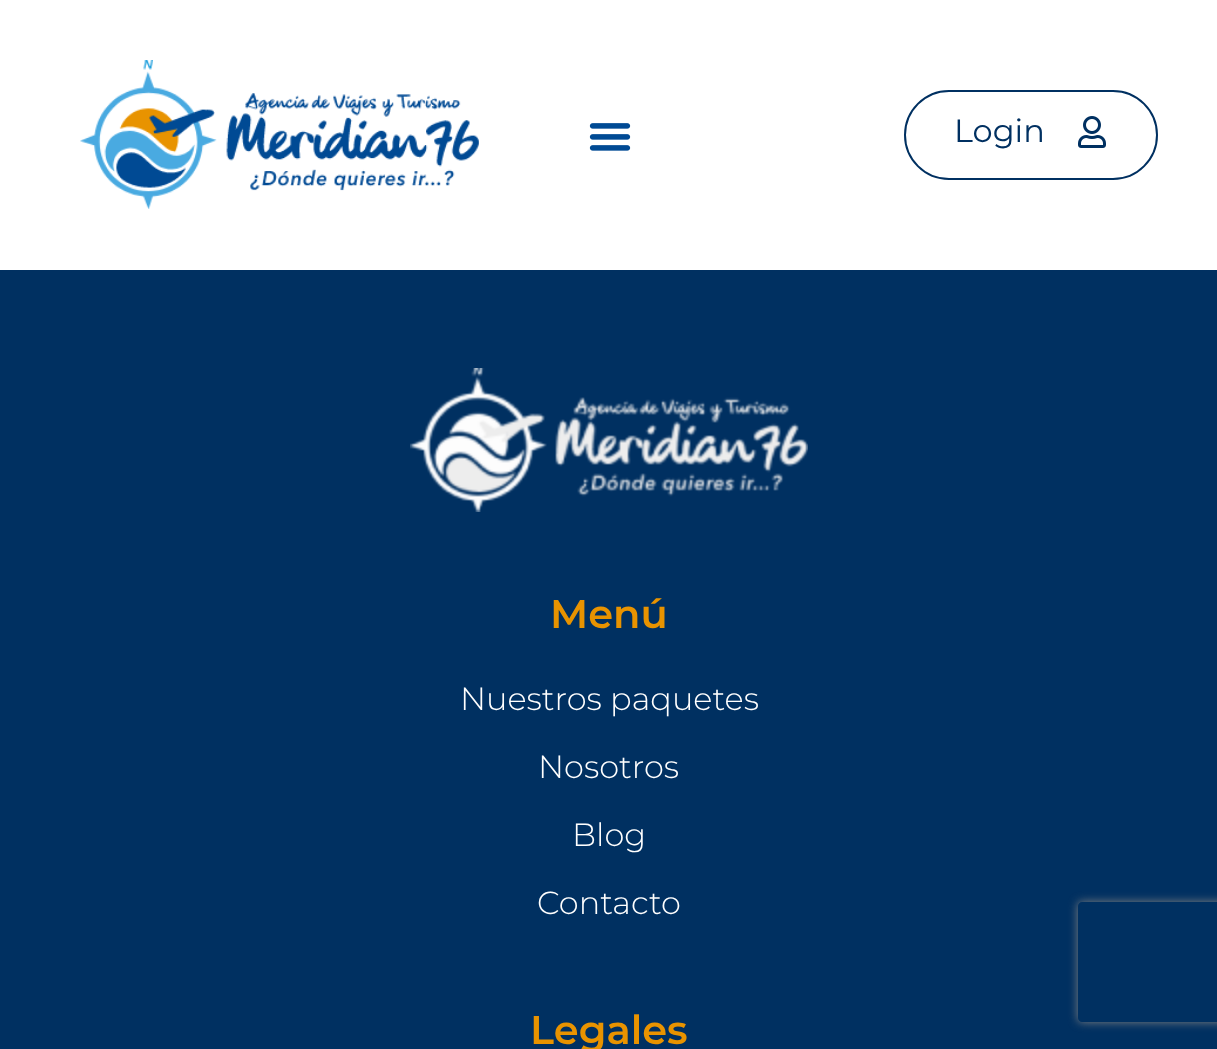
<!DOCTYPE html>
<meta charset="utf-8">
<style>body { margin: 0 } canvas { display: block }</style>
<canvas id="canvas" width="1217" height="1049"></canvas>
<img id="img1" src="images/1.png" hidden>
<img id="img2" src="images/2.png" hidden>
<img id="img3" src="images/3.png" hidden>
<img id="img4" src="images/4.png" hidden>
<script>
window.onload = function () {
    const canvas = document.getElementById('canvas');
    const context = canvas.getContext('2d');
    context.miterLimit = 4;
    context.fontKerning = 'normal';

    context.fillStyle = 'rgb(255, 255, 255)';
    context.fillRect(0, 0, 1217, 1049);
    context.drawImage(document.getElementById('img1'), 80, 60, 399, 149);
    context.drawImage(document.getElementById('img2'), 589, 123, 42, 28);
    context.beginPath();
    context.roundRect(905, 91, 252, 88, 44);
    context.strokeStyle = 'rgb(0, 48, 97)';
    context.lineWidth = 2;
    context.stroke();
    context.drawImage(document.getElementById('img3'), 1078, 116, 28, 32);
    context.fillStyle = 'rgb(0, 48, 97)';
    context.fillRect(0, 270, 1217, 779);
    context.drawImage(document.getElementById('img4'), 410, 368, 398, 144);
    context.save();
    context.beginPath();
    context.moveTo(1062, 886);
    context.lineTo(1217, 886);
    context.lineTo(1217, 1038);
    context.lineTo(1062, 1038);
    context.closePath();
    context.moveTo(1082, 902);
    context.lineTo(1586, 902);
    context.bezierCurveTo(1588, 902, 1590, 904, 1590, 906);
    context.lineTo(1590, 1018);
    context.bezierCurveTo(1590, 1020, 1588, 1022, 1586, 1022);
    context.lineTo(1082, 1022);
    context.bezierCurveTo(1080, 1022, 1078, 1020, 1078, 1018);
    context.lineTo(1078, 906);
    context.bezierCurveTo(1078, 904, 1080, 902, 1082, 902);
    context.closePath();
    context.clip('evenodd');
    context.fillStyle = 'rgb(128, 128, 128)';
    context.filter = 'blur(5px)';
    context.beginPath();
    context.roundRect(1078, 902, 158, 120, 4);
    context.fill();
    context.filter = 'none';
    context.restore();
    context.font = '32px Montserrat';
    context.fillText('Login', 954, 142);
    context.font = '600 40px Montserrat';
    context.fillStyle = 'rgb(232, 147, 0)';
    context.fillText('Menú', 550, 628);
    context.font = '300 32px Montserrat';
    context.fillStyle = 'rgb(255, 255, 255)';
    context.fillText('Nuestros paquetes', 460, 710);
    context.fillText('Nosotros', 538, 778);
    context.fillText('Blog', 572, 846);
    context.fillText('Contacto', 537, 914);
    context.font = '600 40px Montserrat';
    context.fillStyle = 'rgb(232, 147, 0)';
    context.fillText('Legales', 530, 1044);
};
</script>
